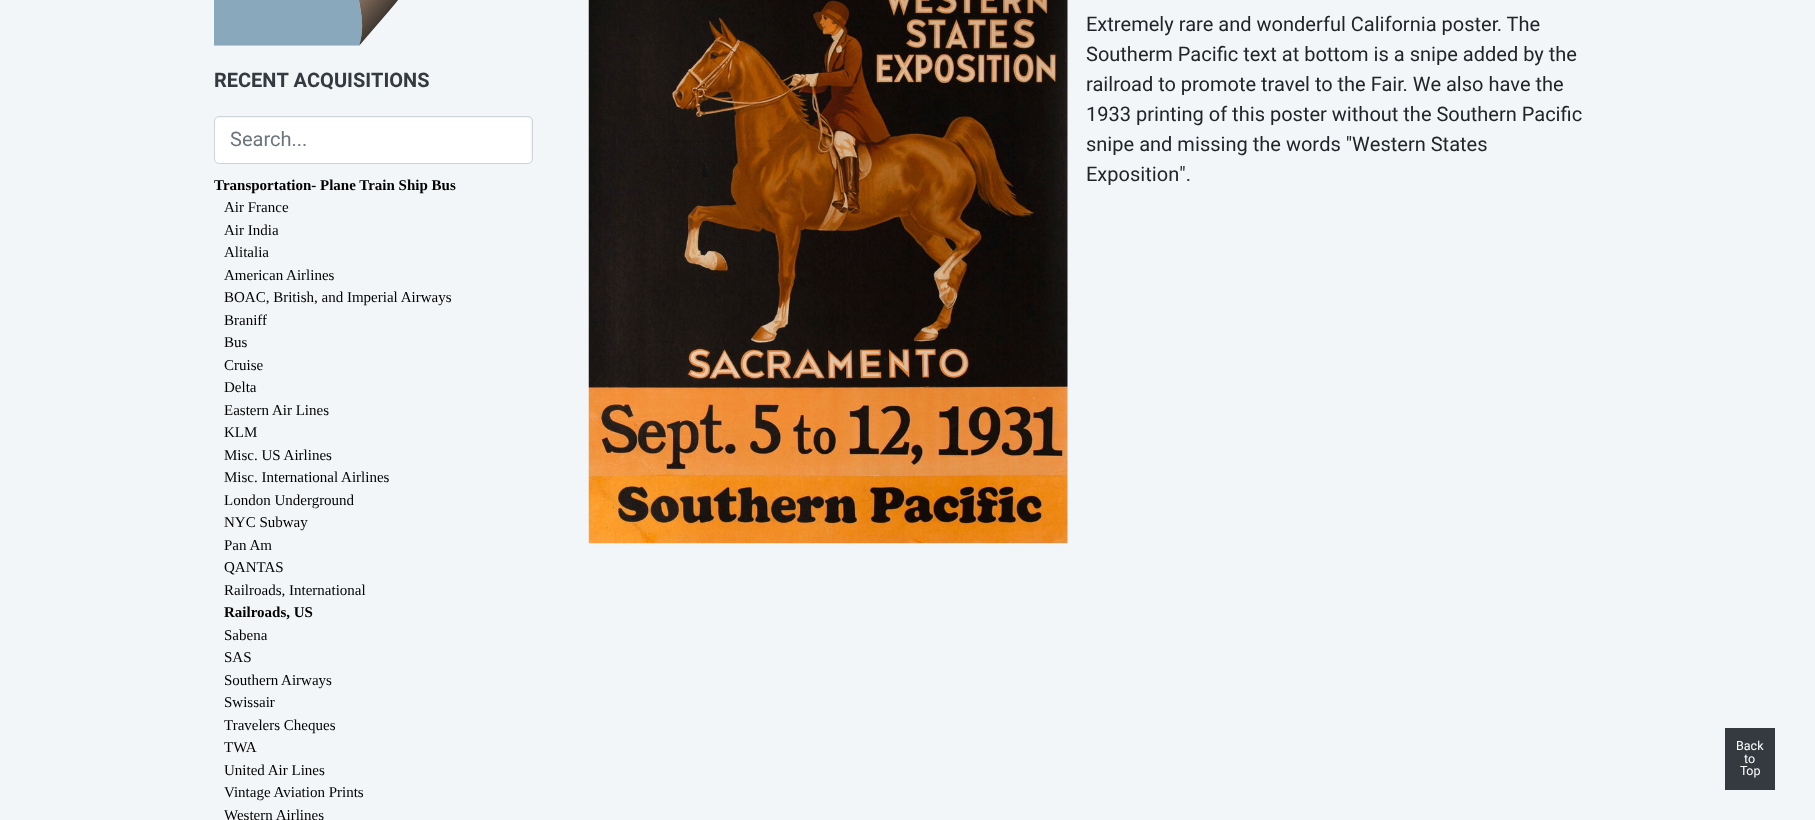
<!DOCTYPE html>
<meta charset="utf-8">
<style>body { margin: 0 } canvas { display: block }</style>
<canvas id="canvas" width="1815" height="820"></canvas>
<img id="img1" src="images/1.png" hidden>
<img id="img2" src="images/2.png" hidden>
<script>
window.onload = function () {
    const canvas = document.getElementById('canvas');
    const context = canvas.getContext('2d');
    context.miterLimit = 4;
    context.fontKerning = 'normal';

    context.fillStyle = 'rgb(243, 246, 248)';
    context.fillRect(0, 0, 1815, 820);
    context.drawImage(document.getElementById('img1'), 214, 0, 184, 46);
    context.fillStyle = 'rgb(255, 255, 255)';
    context.beginPath();
    context.roundRect(215, 118, 316, 45, 4);
    context.fill();
    context.beginPath();
    context.roundRect(214.5, 116.5, 318, 47, 4.5);
    context.strokeStyle = 'rgb(206, 212, 218)';
    context.stroke();
    context.drawImage(document.getElementById('img2'), 588, 0, 480, 544);
    context.fillStyle = 'rgb(52, 58, 64)';
    context.fillRect(1725, 728, 50, 62);
    context.font = 'bold 20px Heebo';
    context.fillText('RECENT ACQUISITIONS', 214, 87);
    context.font = '20px Heebo';
    context.fillStyle = 'rgb(108, 117, 125)';
    context.fillText('Search...', 230, 146);
    context.font = 'bold 15px Liberation Serif';
    context.fillStyle = 'rgb(0, 0, 0)';
    context.fillText('Transportation- Plane Train Ship Bus', 214, 190);
    context.font = '15px Liberation Serif';
    context.fillText('Air France', 224, 212);
    context.fillText('Air India', 224, 235);
    context.fillText('Alitalia', 224, 257);
    context.fillText('American Airlines', 224, 280);
    context.fillText('BOAC, British, and Imperial Airways', 224, 302);
    context.fillText('Braniff', 224, 325);
    context.fillText('Bus', 224, 347);
    context.fillText('Cruise', 224, 370);
    context.fillText('Delta', 224, 392);
    context.fillText('Eastern Air Lines', 224, 415);
    context.fillText('KLM', 224, 437);
    context.fillText('Misc. US Airlines', 224, 460);
    context.fillText('Misc. International Airlines', 224, 482);
    context.fillText('London Underground', 224, 505);
    context.fillText('NYC Subway', 224, 527);
    context.fillText('Pan Am', 224, 550);
    context.fillText('QANTAS', 224, 572);
    context.fillText('Railroads, International', 224, 595);
    context.font = 'bold 15px Liberation Serif';
    context.fillText('Railroads, US', 224, 617);
    context.font = '15px Liberation Serif';
    context.fillText('Sabena', 224, 640);
    context.fillText('SAS', 224, 662);
    context.fillText('Southern Airways', 224, 685);
    context.fillText('Swissair', 224, 707);
    context.fillText('Travelers Cheques', 224, 730);
    context.fillText('TWA', 224, 752);
    context.fillText('United Air Lines', 224, 775);
    context.fillText('Vintage Aviation Prints', 224, 797);
    context.fillText('Western Airlines', 224, 820);
    context.font = '20px Heebo';
    context.fillStyle = 'rgb(33, 37, 41)';
    context.fillText('Extremely rare and wonderful California poster. The', 1086, 31);
    context.fillText('Southerm Pacific text at bottom is a snipe added by the', 1086, 61);
    context.fillText('railroad to promote travel to the Fair. We also have the', 1086, 91);
    context.fillText('1933 printing of this poster without the Southern Pacific', 1086, 121);
    context.fillText('snipe and missing the words "Western States', 1086, 151);
    context.fillText('Exposition".', 1086, 181);
    context.font = '12.5px Heebo';
    context.fillStyle = 'rgb(255, 255, 255)';
    context.fillText('Back', 1736, 750);
    context.fillText('to', 1744, 763);
    context.fillText('Top', 1740, 775);
};
</script>
